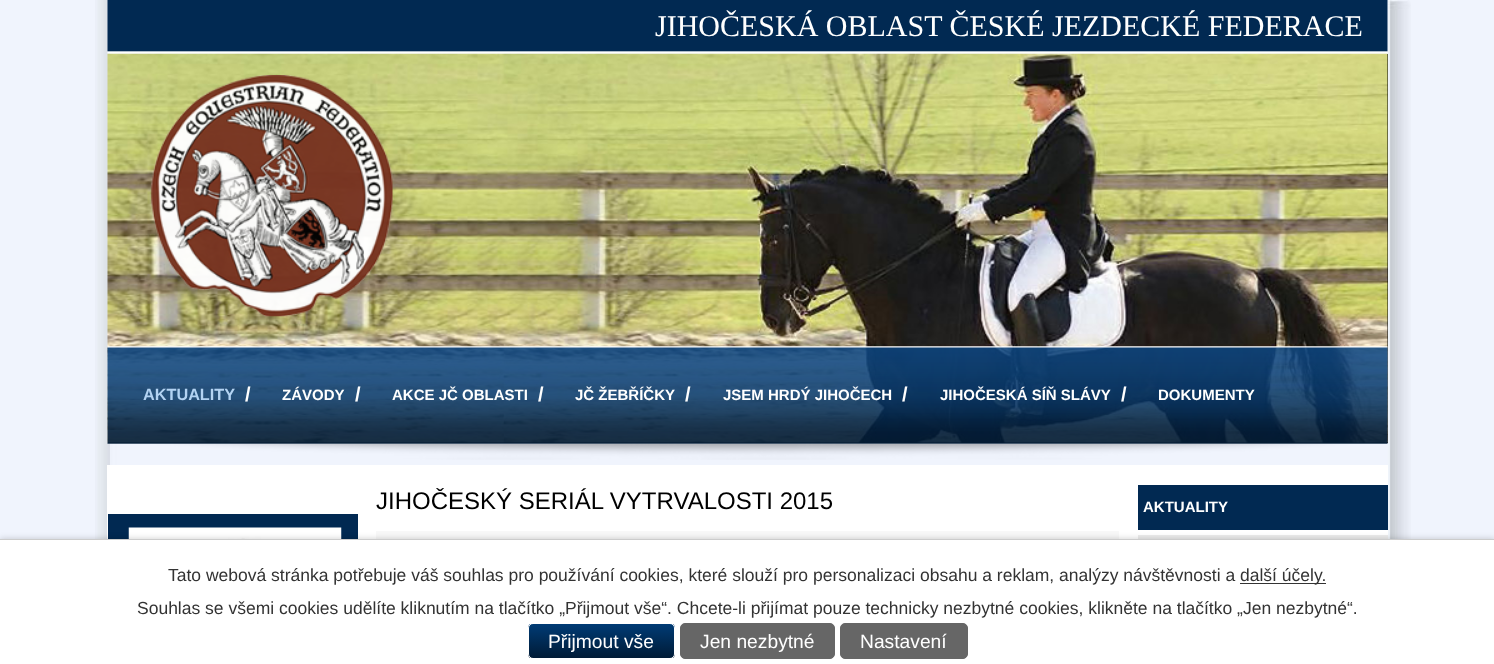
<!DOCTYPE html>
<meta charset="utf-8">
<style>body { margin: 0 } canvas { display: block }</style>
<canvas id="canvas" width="1494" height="664"></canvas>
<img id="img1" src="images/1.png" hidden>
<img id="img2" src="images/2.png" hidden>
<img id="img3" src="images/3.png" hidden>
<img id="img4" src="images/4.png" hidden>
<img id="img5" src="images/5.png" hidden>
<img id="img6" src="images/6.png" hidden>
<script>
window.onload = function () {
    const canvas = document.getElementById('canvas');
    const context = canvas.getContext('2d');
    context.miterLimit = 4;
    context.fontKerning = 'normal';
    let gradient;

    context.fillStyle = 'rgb(240, 244, 253)';
    context.fillRect(0, 0, 1494, 664);
    context.drawImage(document.getElementById('img1'), 95, 0, 1316, 539);
    context.drawImage(document.getElementById('img2'), 107, 0, 1281, 460);
    context.fillStyle = 'rgb(0, 0, 0)';
    context.fillRect(108, 54, 1280, 389);
    context.drawImage(document.getElementById('img3'), 107, 53, 1281, 390);
    context.drawImage(document.getElementById('img4'), 151, 75, 242, 242);
    context.drawImage(document.getElementById('img5'), 107, 346, 1281, 98);
    context.fillStyle = 'rgb(255, 255, 255)';
    context.fillRect(107, 465, 1281, 74);
    context.fillStyle = 'rgb(248, 248, 248)';
    context.fillRect(376, 531, 743, 8);
    context.fillStyle = 'rgb(1, 41, 82)';
    context.fillRect(1138, 485, 250, 45);
    context.fillStyle = 'rgb(236, 236, 236)';
    context.fillRect(1138, 535, 250, 4);
    context.fillStyle = 'rgb(1, 41, 82)';
    context.fillRect(108, 514, 250, 25);
    context.drawImage(document.getElementById('img6'), 128, 527, 214, 12);
    context.fillStyle = 'rgba(0, 0, 0, 0.2)';
    context.filter = 'blur(3px)';
    context.beginPath();
    context.rect(0, 539, 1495, 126);
    context.fill();
    context.filter = 'none';
    context.fillStyle = 'rgb(255, 255, 255)';
    context.fillRect(0, 540, 1494, 124);
    context.fillStyle = 'rgb(204, 204, 204)';
    context.fillRect(0, 539, 1494, 1);
    context.fillStyle = 'rgb(51, 51, 51)';
    context.fillRect(1240, 583, 86, 1);
    context.save();
    context.beginPath();
    context.roundRect(528, 623, 147, 36, 5);
    context.clip();
    gradient = context.createLinearGradient(529, 624, 529, 658);
    gradient.addColorStop(0, 'rgb(0, 59, 117)');
    gradient.addColorStop(1, 'rgb(0, 27, 54)');
    context.fillStyle = gradient;
    context.fillRect(528, 624, 147, 34);
    context.restore();
    context.beginPath();
    context.roundRect(528.5, 623.5, 146, 35, 4.5);
    context.strokeStyle = 'rgb(255, 255, 255)';
    context.stroke();
    context.fillStyle = 'rgb(102, 102, 102)';
    context.beginPath();
    context.roundRect(680.5, 623.5, 154, 35, 4.5);
    context.fill();
    context.strokeStyle = 'rgb(102, 102, 102)';
    context.stroke();
    context.beginPath();
    context.roundRect(840.5, 623.5, 127, 35, 4.5);
    context.fill();
    context.stroke();
    context.font = '30px Liberation Serif';
    context.fillStyle = 'rgb(255, 255, 255)';
    context.fillText('JIHOČESKÁ OBLAST ČESKÉ JEZDECKÉ FEDERACE', 655, 36);
    context.font = 'bold 16.25px Liberation Sans';
    context.fillStyle = 'rgb(179, 211, 243)';
    context.fillText('AKTUALITY', 143, 400);
    context.font = 'bold 20px Liberation Sans';
    context.fillStyle = 'rgb(255, 255, 255)';
    context.fillText('/', 245, 401);
    context.font = 'bold 15px Liberation Sans';
    context.fillText('ZÁVODY', 282, 400);
    context.font = 'bold 20px Liberation Sans';
    context.fillText('/', 355, 401);
    context.font = 'bold 15px Liberation Sans';
    context.fillText('AKCE JČ OBLASTI', 392, 400);
    context.font = 'bold 20px Liberation Sans';
    context.fillText('/', 538, 401);
    context.font = 'bold 15px Liberation Sans';
    context.fillText('JČ ŽEBŘÍČKY', 575, 400);
    context.font = 'bold 20px Liberation Sans';
    context.fillText('/', 685, 401);
    context.font = 'bold 15px Liberation Sans';
    context.fillText('JSEM HRDÝ JIHOČECH', 723, 400);
    context.font = 'bold 20px Liberation Sans';
    context.fillText('/', 902, 401);
    context.font = 'bold 15px Liberation Sans';
    context.fillText('JIHOČESKÁ SÍŇ SLÁVY', 940, 400);
    context.font = 'bold 20px Liberation Sans';
    context.fillText('/', 1121, 401);
    context.font = 'bold 15px Liberation Sans';
    context.fillText('DOKUMENTY', 1158, 400);
    context.font = '24px Liberation Sans';
    context.fillStyle = 'rgb(0, 0, 0)';
    context.fillText('JIHOČESKÝ SERIÁL VYTRVALOSTI 2015', 376, 509);
    context.font = 'bold 15px Liberation Sans';
    context.fillStyle = 'rgb(255, 255, 255)';
    context.fillText('AKTUALITY', 1143, 512);
    context.font = '17.5px Liberation Sans';
    context.fillStyle = 'rgb(51, 51, 51)';
    context.fillText('Tato webová stránka potřebuje váš souhlas pro používání cookies, které slouží pro personalizaci obsahu a reklam, analýzy návštěvnosti a', 168, 581);
    context.fillText('další účely.', 1240, 581);
    context.fillText('Souhlas se všemi cookies udělíte kliknutím na tlačítko „Přijmout vše“. Chcete-li přijímat pouze technicky nezbytné cookies, klikněte na tlačítko „Jen nezbytné“.', 137, 614);
    context.font = '19.25px Liberation Sans';
    context.fillStyle = 'rgb(255, 255, 255)';
    context.fillText('Přijmout vše', 548, 648);
    context.fillText('Jen nezbytné', 700, 648);
    context.fillText('Nastavení', 860, 648);
};
</script>
